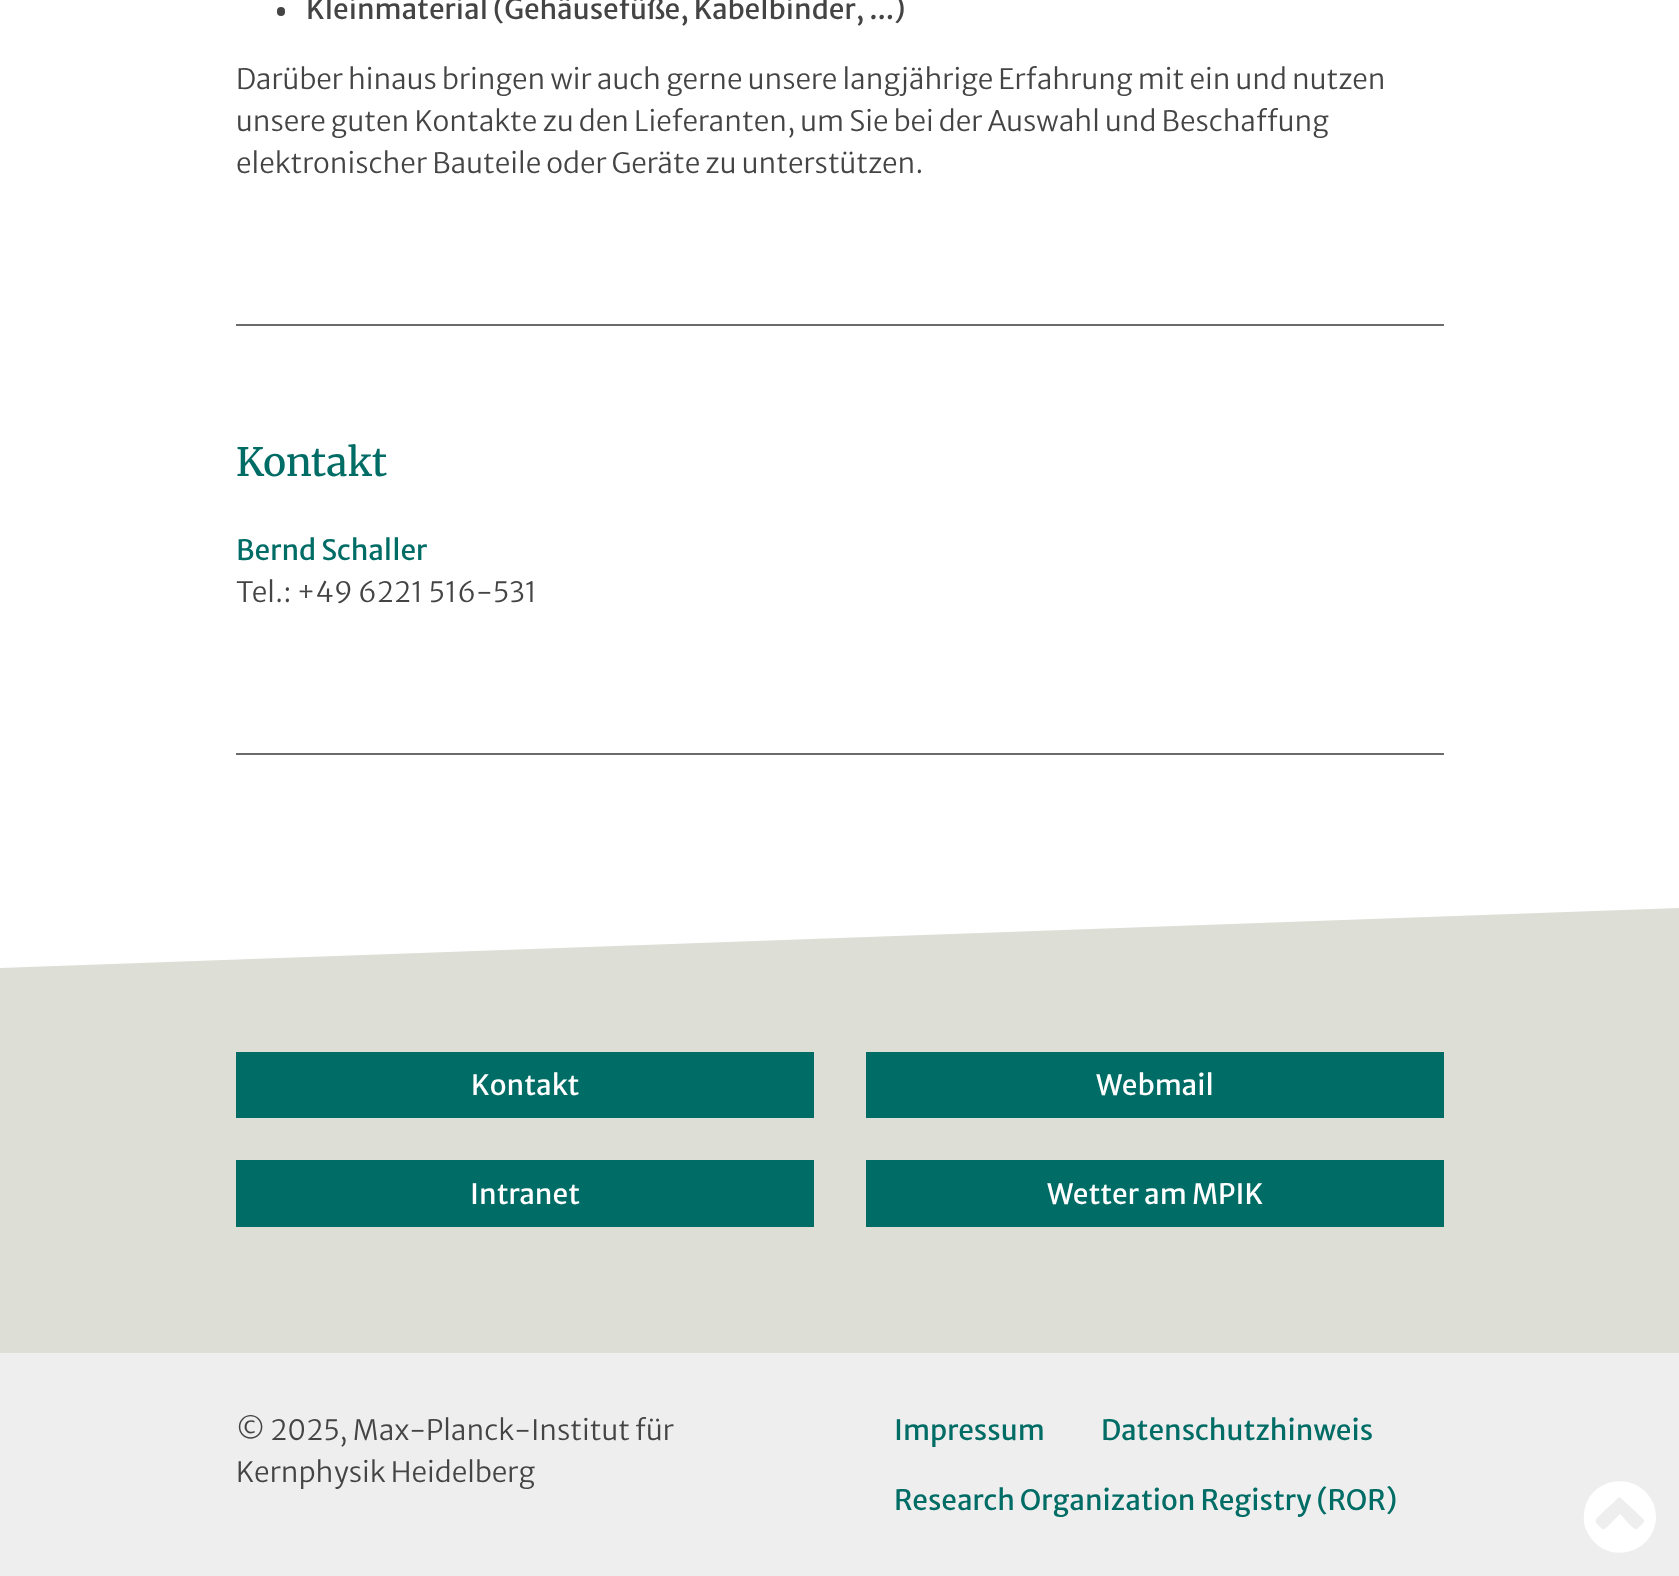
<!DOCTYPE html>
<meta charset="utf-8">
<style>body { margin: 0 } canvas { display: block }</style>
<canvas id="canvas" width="1679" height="1576"></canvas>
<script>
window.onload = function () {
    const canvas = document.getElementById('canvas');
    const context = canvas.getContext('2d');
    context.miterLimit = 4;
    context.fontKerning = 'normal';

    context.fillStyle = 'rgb(255, 255, 255)';
    context.fillRect(0, 0, 1679, 1576);
    context.fillStyle = 'rgb(68, 68, 68)';
    context.beginPath();
    context.roundRect(277, 7, 8, 9, 4);
    context.fill();
    context.fillStyle = 'rgb(107, 107, 107)';
    context.fillRect(236, 324, 1208, 2);
    context.fillRect(236, 753, 1208, 2);
    context.fillStyle = 'rgb(221, 222, 214)';
    context.beginPath();
    context.moveTo(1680, 908);
    context.lineTo(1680, 968);
    context.lineTo(0, 968);
    context.lineTo(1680, 908);
    context.fill();
    context.fillRect(0, 968, 1679, 385);
    context.fillStyle = 'rgb(0, 108, 102)';
    context.fillRect(236, 1052, 578, 66);
    context.fillRect(866, 1052, 578, 66);
    context.fillRect(236, 1160, 578, 67);
    context.fillRect(866, 1160, 578, 67);
    context.fillStyle = 'rgb(238, 238, 238)';
    context.fillRect(0, 1353, 1679, 223);
    context.fillStyle = 'rgb(255, 255, 255)';
    context.beginPath();
    context.moveTo(1638, 1528);
    context.bezierCurveTo(1647, 1520, 1646, 1522, 1636, 1512);
    context.lineTo(1625, 1502);
    context.bezierCurveTo(1619, 1496, 1620, 1496, 1614, 1502);
    context.lineTo(1603, 1512);
    context.bezierCurveTo(1599, 1517, 1592, 1520, 1598, 1525);
    context.bezierCurveTo(1603, 1530, 1603, 1531, 1608, 1526);
    context.lineTo(1620, 1514);
    context.lineTo(1629, 1524);
    context.bezierCurveTo(1631, 1525, 1635, 1532, 1638, 1528);
    context.closePath();
    context.moveTo(1651, 1499);
    context.bezierCurveTo(1655, 1505, 1656, 1512, 1656, 1519);
    context.bezierCurveTo(1653, 1555, 1606, 1565, 1589, 1535);
    context.bezierCurveTo(1585, 1529, 1583, 1522, 1584, 1515);
    context.bezierCurveTo(1586, 1479, 1633, 1469, 1651, 1499);
    context.closePath();
    context.fill();
    context.font = '28px Merriweather Sans';
    context.fillStyle = 'rgb(68, 68, 68)';
    context.fillText('Kleinmaterial (Gehäusefüße, Kabelbinder, ...)', 306, 19);
    context.font = '300 28px Merriweather Sans';
    context.fillText('Darüber hinaus bringen wir auch gerne unsere langjährige Erfahrung mit ein und nutzen', 236, 89);
    context.fillText('unsere guten Kontakte zu den Lieferanten, um Sie bei der Auswahl und Beschaffung', 236, 131);
    context.fillText('elektronischer Bauteile oder Geräte zu unterstützen.', 236, 173);
    context.font = '500 39px Merriweather';
    context.fillStyle = 'rgb(0, 108, 102)';
    context.fillText('Kontakt', 236, 476);
    context.font = '28px Merriweather Sans';
    context.fillText('Bernd Schaller', 236, 560);
    context.font = '300 28px Merriweather Sans';
    context.fillStyle = 'rgb(68, 68, 68)';
    context.fillText('Tel.: +49 6221 516-531', 236, 602);
    context.font = '28px Merriweather Sans';
    context.fillStyle = 'rgb(255, 255, 255)';
    context.fillText('Kontakt', 471, 1095);
    context.fillText('Webmail', 1096, 1095);
    context.fillText('Intranet', 470, 1204);
    context.fillText('Wetter am MPIK', 1047, 1204);
    context.font = '300 28px Merriweather Sans';
    context.fillStyle = 'rgb(68, 68, 68)';
    context.fillText('© 2025, Max-Planck-Institut für', 236, 1440);
    context.fillText('Kernphysik Heidelberg', 236, 1482);
    context.font = '28px Merriweather Sans';
    context.fillStyle = 'rgb(0, 108, 102)';
    context.fillText('Impressum', 894, 1440);
    context.fillText('Datenschutzhinweis', 1101, 1440);
    context.fillText('Research Organization Registry (ROR)', 894, 1510);
};
</script>
